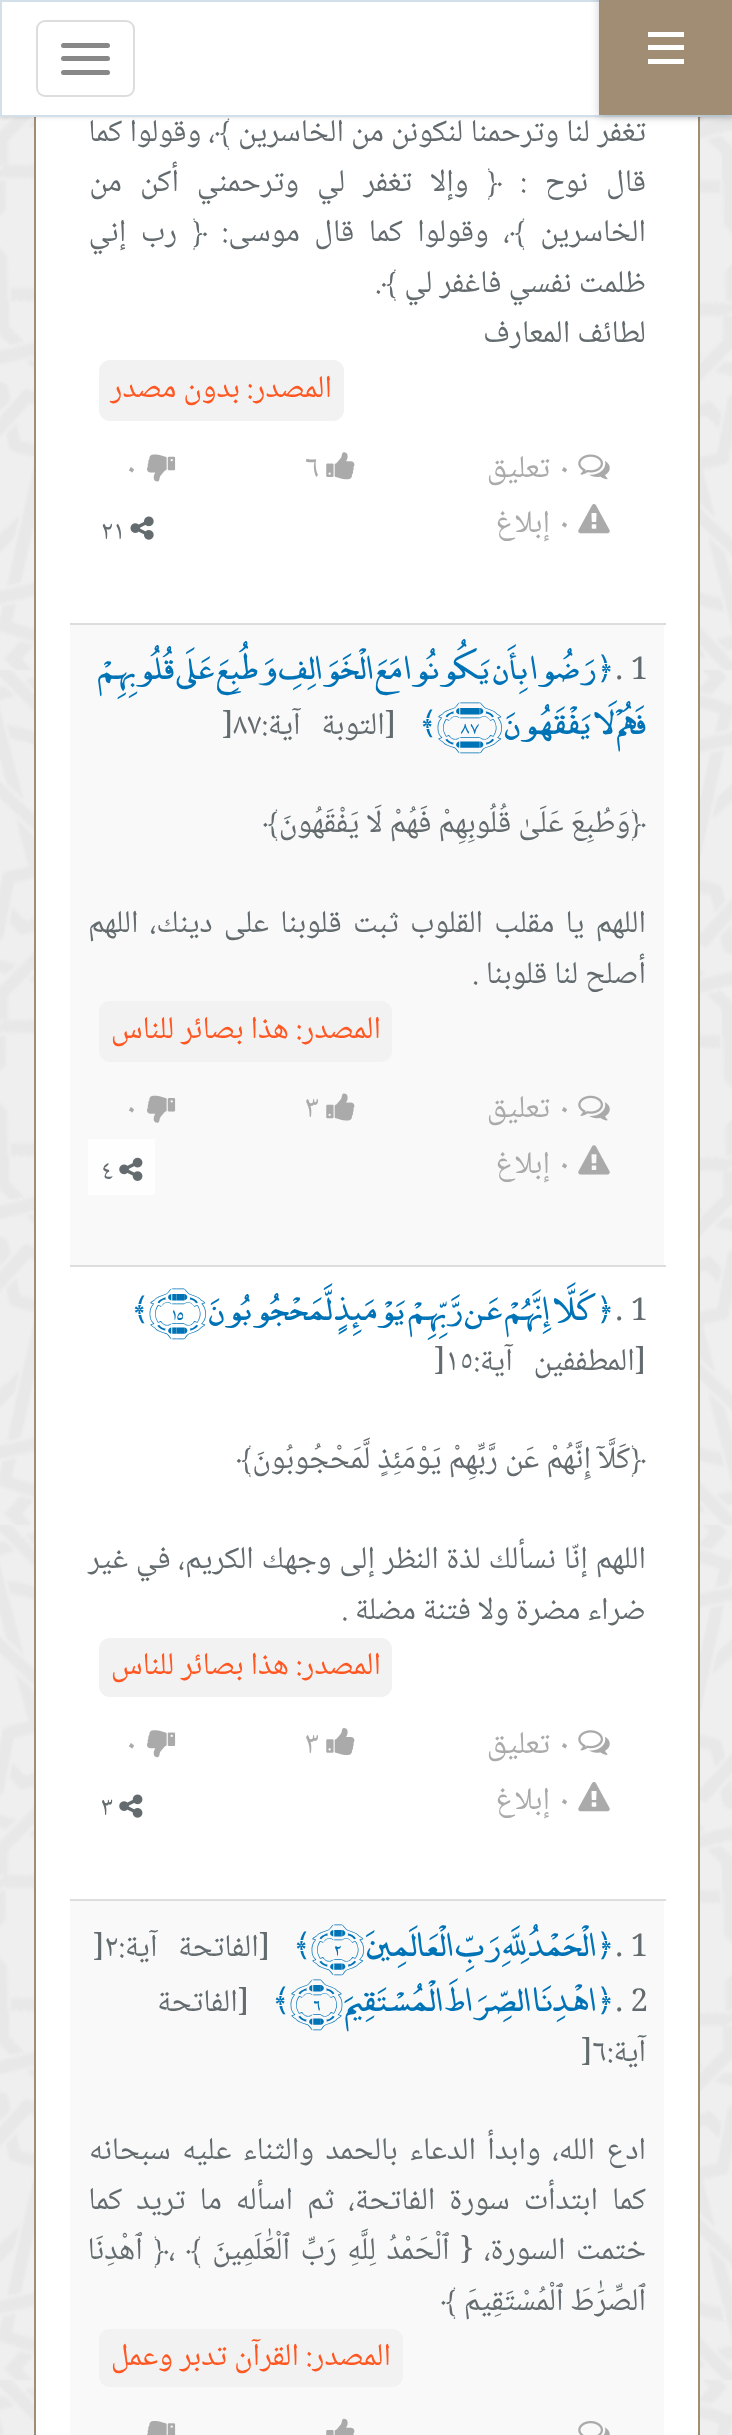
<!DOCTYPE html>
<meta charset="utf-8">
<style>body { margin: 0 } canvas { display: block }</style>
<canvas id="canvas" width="732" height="2435"></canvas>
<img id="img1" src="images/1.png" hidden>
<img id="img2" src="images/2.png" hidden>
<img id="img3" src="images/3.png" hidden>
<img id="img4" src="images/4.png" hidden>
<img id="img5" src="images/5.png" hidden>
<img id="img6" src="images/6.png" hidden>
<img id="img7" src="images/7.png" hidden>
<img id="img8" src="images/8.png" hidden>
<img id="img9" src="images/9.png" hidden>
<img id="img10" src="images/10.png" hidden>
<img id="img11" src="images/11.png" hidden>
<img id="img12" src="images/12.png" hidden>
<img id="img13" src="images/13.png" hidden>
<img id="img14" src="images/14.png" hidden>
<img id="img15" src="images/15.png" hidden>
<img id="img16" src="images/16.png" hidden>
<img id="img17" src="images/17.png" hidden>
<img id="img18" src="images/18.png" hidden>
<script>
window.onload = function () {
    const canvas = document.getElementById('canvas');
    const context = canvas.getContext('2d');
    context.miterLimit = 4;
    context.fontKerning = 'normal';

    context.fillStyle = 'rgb(239, 239, 239)';
    context.fillRect(0, 0, 732, 2435);
    context.drawImage(document.getElementById('img1'), 0, 117, 732, 2318);
    context.fillStyle = 'rgb(255, 255, 255)';
    context.fillRect(36, 117, 662, 2318);
    context.strokeStyle = 'rgb(161, 140, 116)';
    context.lineWidth = 2;
    context.strokeRect(35, -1, 664, 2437);
    context.fillStyle = 'rgba(6, 8, 8, 0.15)';
    context.filter = 'blur(2px)';
    context.beginPath();
    context.rect(0, 0, 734, 117);
    context.fill();
    context.filter = 'none';
    context.fillStyle = 'rgb(255, 255, 255)';
    context.fillRect(2, 2, 597, 113);
    context.strokeStyle = 'rgb(211, 224, 233)';
    context.strokeRect(1, 1, 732, 115);
    context.beginPath();
    context.roundRect(37, 21, 97, 75, 8);
    context.strokeStyle = 'rgb(221, 221, 221)';
    context.stroke();
    context.fillStyle = 'rgb(136, 136, 136)';
    context.beginPath();
    context.roundRect(61, 43, 49, 5, 2.5);
    context.fill();
    context.beginPath();
    context.roundRect(61, 56, 49, 5, 2.5);
    context.fill();
    context.beginPath();
    context.roundRect(61, 70, 49, 5, 2.5);
    context.fill();
    context.fillStyle = 'rgba(0, 0, 0, 0.2)';
    context.filter = 'blur(4.5px)';
    context.beginPath();
    context.rect(599, -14, 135, 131);
    context.fill();
    context.filter = 'none';
    context.fillStyle = 'rgb(161, 140, 116)';
    context.fillRect(599, 0, 133, 115);
    context.fillStyle = 'rgb(255, 255, 255)';
    context.fillRect(648, 45, 36, 5);
    context.fillRect(648, 32, 36, 5);
    context.fillRect(648, 59, 36, 5);
    context.fillStyle = 'rgb(242, 242, 242)';
    context.beginPath();
    context.roundRect(99, 360, 245, 61, 11);
    context.fill();
    context.drawImage(document.getElementById('img2'), 578, 454, 32, 26);
    context.drawImage(document.getElementById('img3'), 326, 452, 29, 28);
    context.drawImage(document.getElementById('img4'), 147, 454, 29, 28);
    context.drawImage(document.getElementById('img5'), 578, 504, 32, 30);
    context.drawImage(document.getElementById('img6'), 130, 516, 24, 24);
    context.fillStyle = 'rgb(249, 249, 249)';
    context.fillRect(70, 625, 594, 640);
    context.fillStyle = 'rgb(221, 221, 221)';
    context.fillRect(70, 623, 596, 2);
    context.fillStyle = 'rgb(242, 242, 242)';
    context.beginPath();
    context.roundRect(99, 1001, 293, 61, 11);
    context.fill();
    context.drawImage(document.getElementById('img7'), 578, 1095, 32, 26);
    context.drawImage(document.getElementById('img8'), 326, 1093, 29, 28);
    context.drawImage(document.getElementById('img9'), 147, 1095, 29, 28);
    context.drawImage(document.getElementById('img10'), 578, 1145, 32, 30);
    context.fillStyle = 'rgb(254, 254, 254)';
    context.fillRect(88, 1139, 67, 56);
    context.drawImage(document.getElementById('img11'), 119, 1157, 24, 24);
    context.fillStyle = 'rgb(221, 221, 221)';
    context.fillRect(70, 1265, 596, 2);
    context.fillStyle = 'rgb(242, 242, 242)';
    context.beginPath();
    context.roundRect(99, 1638, 293, 59, 11);
    context.fill();
    context.drawImage(document.getElementById('img12'), 578, 1730, 32, 25);
    context.drawImage(document.getElementById('img13'), 326, 1728, 29, 27);
    context.drawImage(document.getElementById('img14'), 147, 1730, 29, 28);
    context.drawImage(document.getElementById('img5'), 578, 1782, 32, 30);
    context.drawImage(document.getElementById('img15'), 119, 1794, 24, 24);
    context.fillStyle = 'rgb(249, 249, 249)';
    context.fillRect(70, 1901, 594, 534);
    context.fillStyle = 'rgb(221, 221, 221)';
    context.fillRect(70, 1899, 596, 2);
    context.fillStyle = 'rgb(242, 242, 242)';
    context.beginPath();
    context.roundRect(99, 2329, 304, 58, 11);
    context.fill();
    context.drawImage(document.getElementById('img16'), 578, 2421, 32, 14);
    context.drawImage(document.getElementById('img17'), 326, 2418, 29, 17);
    context.drawImage(document.getElementById('img18'), 147, 2421, 29, 14);
    context.wordSpacing = '0.25px';
    context.direction = 'rtl';
    context.font = '31.5px Noto Naskh Arabic';
    context.fillStyle = 'rgb(99, 107, 111)';
    context.fillText('تغفر لنا وترحمنا لنكونن من الخاسرين ﴾، وقولوا كما', 646, 141);
    context.wordSpacing = '11px';
    context.fillText('قال نوح : ﴿ وإلا تغفر لي وترحمني أكن من', 646, 191);
    context.wordSpacing = '7.5px';
    context.fillText('الخاسرين ﴾، وقولوا كما قال موسى: ﴿ رب إني', 646, 241);
    context.wordSpacing = '0px';
    context.fillText('ظلمت نفسي فاغفر لي ﴾.', 646, 292);
    context.fillText('لطائف المعارف', 646, 342);
    context.fillStyle = 'rgb(255, 87, 34)';
    context.fillText('المصدر:', 332, 397);
    context.fillText('بدون مصدر', 240, 397);
    context.direction = 'ltr';
    context.fillStyle = 'rgb(170, 170, 170)';
    context.fillText('٠', 557, 477);
    context.direction = 'rtl';
    context.fillText('تعليق', 550, 477);
    context.direction = 'ltr';
    context.fillText('٦', 305, 477);
    context.fillText('٠', 124, 477);
    context.fillText('٠', 557, 532);
    context.direction = 'rtl';
    context.fillText('إبلاغ', 550, 532);
    context.direction = 'ltr';
    context.font = '27px Noto Naskh Arabic';
    context.fillStyle = 'rgb(99, 107, 111)';
    context.fillText('٢١', 101, 539);
    context.font = '31.5px Noto Naskh Arabic';
    context.fillText('. 1', 615, 679);
    context.font = '31.5px Cascadia Code';
    context.fillStyle = 'rgb(0, 115, 183)';
    context.fillText('﴿', 596, 679);
    context.direction = 'rtl';
    context.font = '31.5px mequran';
    context.fillText('رَضُوا بِأَن يَكُونُوا مَعَ الْخَوَالِفِ وَطُبِعَ عَلَى قُلُوبِهِمْ', 596, 679);
    context.direction = 'ltr';
    context.fillText('﴾ ٨٧', 437, 734);
    context.direction = 'rtl';
    context.fillText('فَهُمْ لَا يَفْقَهُونَ ﴿', 646, 734);
    context.direction = 'ltr';
    context.font = '31.5px Cascadia Code';
    context.fillText('﴾', 419, 734);
    context.direction = 'rtl';
    context.font = '31.5px Noto Naskh Arabic';
    context.fillStyle = 'rgb(99, 107, 111)';
    context.fillText('[التوبة   آية:', 396, 734);
    context.direction = 'ltr';
    context.fillText(']٨٧', 222, 734);
    context.direction = 'rtl';
    context.fillText('﴿وَطُبِعَ عَلَىٰ قُلُوبِهِمْ فَهُمْ لَا يَفْقَهُونَ﴾', 646, 832);
    context.wordSpacing = '4.25px';
    context.fillText('اللهم يا مقلب القلوب ثبت قلوبنا على دينك، اللهم', 646, 932);
    context.wordSpacing = '0px';
    context.fillText('أصلح لنا قلوبنا .', 646, 983);
    context.fillStyle = 'rgb(255, 87, 34)';
    context.fillText('المصدر:', 381, 1038);
    context.fillText('هذا بصائر للناس', 289, 1038);
    context.direction = 'ltr';
    context.fillStyle = 'rgb(170, 170, 170)';
    context.fillText('٠', 557, 1117);
    context.direction = 'rtl';
    context.fillText('تعليق', 550, 1117);
    context.direction = 'ltr';
    context.fillText('٣', 305, 1117);
    context.fillText('٠', 124, 1117);
    context.fillText('٠', 557, 1173);
    context.direction = 'rtl';
    context.fillText('إبلاغ', 550, 1173);
    context.direction = 'ltr';
    context.font = '27px Noto Naskh Arabic';
    context.fillStyle = 'rgb(99, 107, 111)';
    context.fillText('٤', 101, 1179);
    context.font = '31.5px Noto Naskh Arabic';
    context.fillText('. 1', 615, 1320);
    context.font = '31.5px Cascadia Code';
    context.fillStyle = 'rgb(0, 115, 183)';
    context.fillText('﴿', 596, 1320);
    context.font = '31.5px mequran';
    context.fillText('﴾ ١٥', 149, 1320);
    context.direction = 'rtl';
    context.fillText('كَلَّا إِنَّهُمْ عَن رَّبِّهِمْ يَوْمَئِذٍ لَّمَحْجُوبُونَ ﴿', 596, 1320);
    context.direction = 'ltr';
    context.font = '31.5px Cascadia Code';
    context.fillText('﴾', 131, 1320);
    context.direction = 'rtl';
    context.font = '31.5px Noto Naskh Arabic';
    context.fillStyle = 'rgb(99, 107, 111)';
    context.fillText('[المطففين   آية:', 646, 1370);
    context.direction = 'ltr';
    context.fillText(']١٥', 434, 1370);
    context.direction = 'rtl';
    context.fillText('﴿كَلَّآ إِنَّهُمْ عَن رَّبِّهِمْ يَوْمَئِذٍ لَّمَحْجُوبُونَ﴾', 646, 1468);
    context.wordSpacing = '0.75px';
    context.fillText('اللهم إنّا نسألك لذة النظر إلى وجهك الكريم، في غير', 646, 1568);
    context.wordSpacing = '0px';
    context.fillText('ضراء مضرة ولا فتنة مضلة .', 646, 1619);
    context.fillStyle = 'rgb(255, 87, 34)';
    context.fillText('المصدر:', 381, 1674);
    context.fillText('هذا بصائر للناس', 289, 1674);
    context.direction = 'ltr';
    context.fillStyle = 'rgb(170, 170, 170)';
    context.fillText('٠', 557, 1753);
    context.direction = 'rtl';
    context.fillText('تعليق', 550, 1753);
    context.direction = 'ltr';
    context.fillText('٣', 305, 1753);
    context.fillText('٠', 124, 1753);
    context.fillText('٠', 557, 1809);
    context.direction = 'rtl';
    context.fillText('إبلاغ', 550, 1809);
    context.direction = 'ltr';
    context.font = '27px Noto Naskh Arabic';
    context.fillStyle = 'rgb(99, 107, 111)';
    context.fillText('٣', 101, 1815);
    context.font = '31.5px Noto Naskh Arabic';
    context.fillText('. 1', 615, 1956);
    context.font = '31.5px Cascadia Code';
    context.fillStyle = 'rgb(0, 115, 183)';
    context.fillText('﴿', 596, 1956);
    context.font = '31.5px mequran';
    context.fillText('﴾ ٢', 311, 1956);
    context.direction = 'rtl';
    context.fillText('الْحَمْدُ لِلَّهِ رَبِّ الْعَالَمِينَ ﴿', 596, 1956);
    context.direction = 'ltr';
    context.font = '31.5px Cascadia Code';
    context.fillText('﴾', 293, 1956);
    context.direction = 'rtl';
    context.font = '31.5px Noto Naskh Arabic';
    context.fillStyle = 'rgb(99, 107, 111)';
    context.fillText('[الفاتحة   آية:', 270, 1956);
    context.direction = 'ltr';
    context.fillText(']٢', 93, 1956);
    context.fillText('. 2', 615, 2011);
    context.font = '31.5px Cascadia Code';
    context.fillStyle = 'rgb(0, 115, 183)';
    context.fillText('﴿', 596, 2011);
    context.font = '31.5px mequran';
    context.fillText('﴾ ٦', 290, 2011);
    context.direction = 'rtl';
    context.fillText('اهْدِنَا الصِّرَاطَ الْمُسْتَقِيمَ ﴿', 596, 2011);
    context.direction = 'ltr';
    context.font = '31.5px Cascadia Code';
    context.fillText('﴾', 272, 2011);
    context.direction = 'rtl';
    context.font = '31.5px Noto Naskh Arabic';
    context.fillStyle = 'rgb(99, 107, 111)';
    context.fillText('[الفاتحة', 249, 2011);
    context.fillText('آية:', 646, 2061);
    context.direction = 'ltr';
    context.fillText(']٦', 581, 2061);
    context.wordSpacing = '4.5px';
    context.direction = 'rtl';
    context.fillText('ادع الله، وابدأ الدعاء بالحمد والثناء عليه سبحانه', 646, 2159);
    context.wordSpacing = '7px';
    context.fillText('كما ابتدأت سورة الفاتحة، ثم اسأله ما تريد كما', 646, 2209);
    context.wordSpacing = '3.5px';
    context.fillText('ختمت السورة، { ٱلْحَمْدُ لِلَّهِ رَبِّ ٱلْعَٰلَمِينَ ﴾ ،﴿ ٱهْدِنَا', 646, 2259);
    context.wordSpacing = '0px';
    context.fillText('ٱلصِّرَٰطَ ٱلْمُسْتَقِيمَ ﴾', 646, 2310);
    context.fillStyle = 'rgb(255, 87, 34)';
    context.fillText('المصدر:', 391, 2365);
    context.fillText('القرآن تدبر وعمل', 299, 2365);
};
</script>
